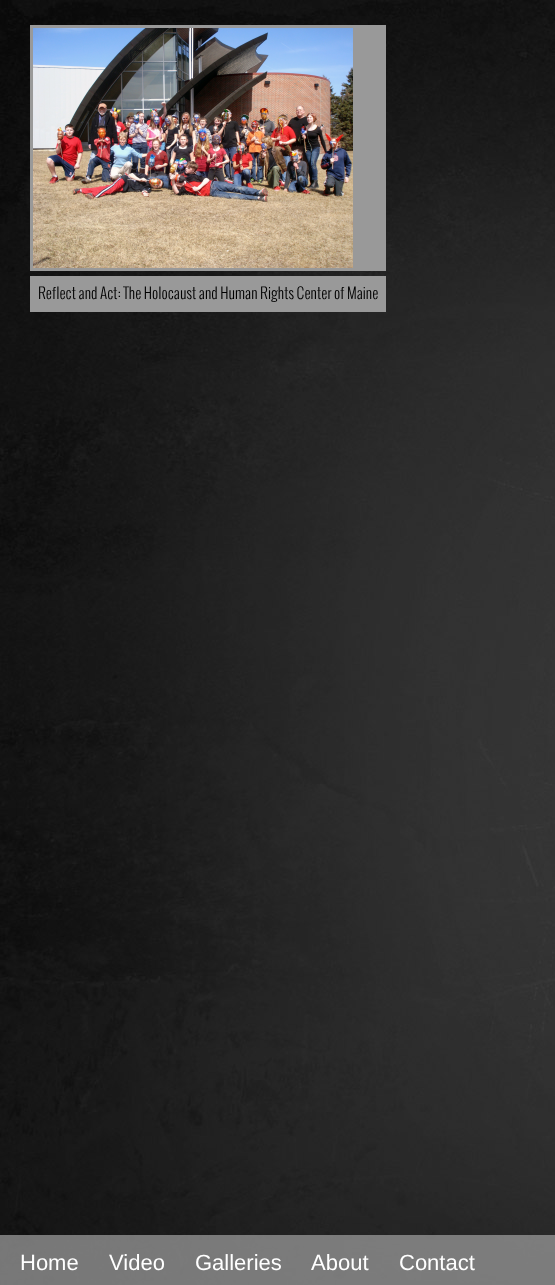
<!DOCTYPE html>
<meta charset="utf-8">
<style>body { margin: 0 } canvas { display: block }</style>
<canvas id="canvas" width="555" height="1285"></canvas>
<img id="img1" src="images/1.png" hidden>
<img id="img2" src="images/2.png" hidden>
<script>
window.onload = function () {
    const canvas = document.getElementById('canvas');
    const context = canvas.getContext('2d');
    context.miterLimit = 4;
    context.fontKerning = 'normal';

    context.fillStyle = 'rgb(255, 255, 255)';
    context.fillRect(0, 0, 555, 1285);
    context.drawImage(document.getElementById('img1'), 0, 0, 555, 1285);
    context.fillStyle = 'rgb(153, 153, 153)';
    context.fillRect(30, 25, 356, 246);
    context.drawImage(document.getElementById('img2'), 33, 28, 320, 240);
    context.fillRect(30, 276, 356, 36);
    context.fillStyle = 'rgba(153, 153, 153, 0.75)';
    context.fillRect(0, 1235, 555, 50);
    context.font = '300 15px Oswald';
    context.fillStyle = 'rgb(0, 0, 0)';
    context.fillText('Reflect and Act: The Holocaust and Human Rights Center of Maine', 38, 299);
    context.font = '22px Liberation Sans';
    context.fillStyle = 'rgb(255, 255, 255)';
    context.fillText('Home', 20, 1270);
    context.fillText('Video', 109, 1270);
    context.fillText('Galleries', 195, 1270);
    context.fillText('About', 311, 1270);
    context.fillText('Contact', 399, 1270);
};
</script>
